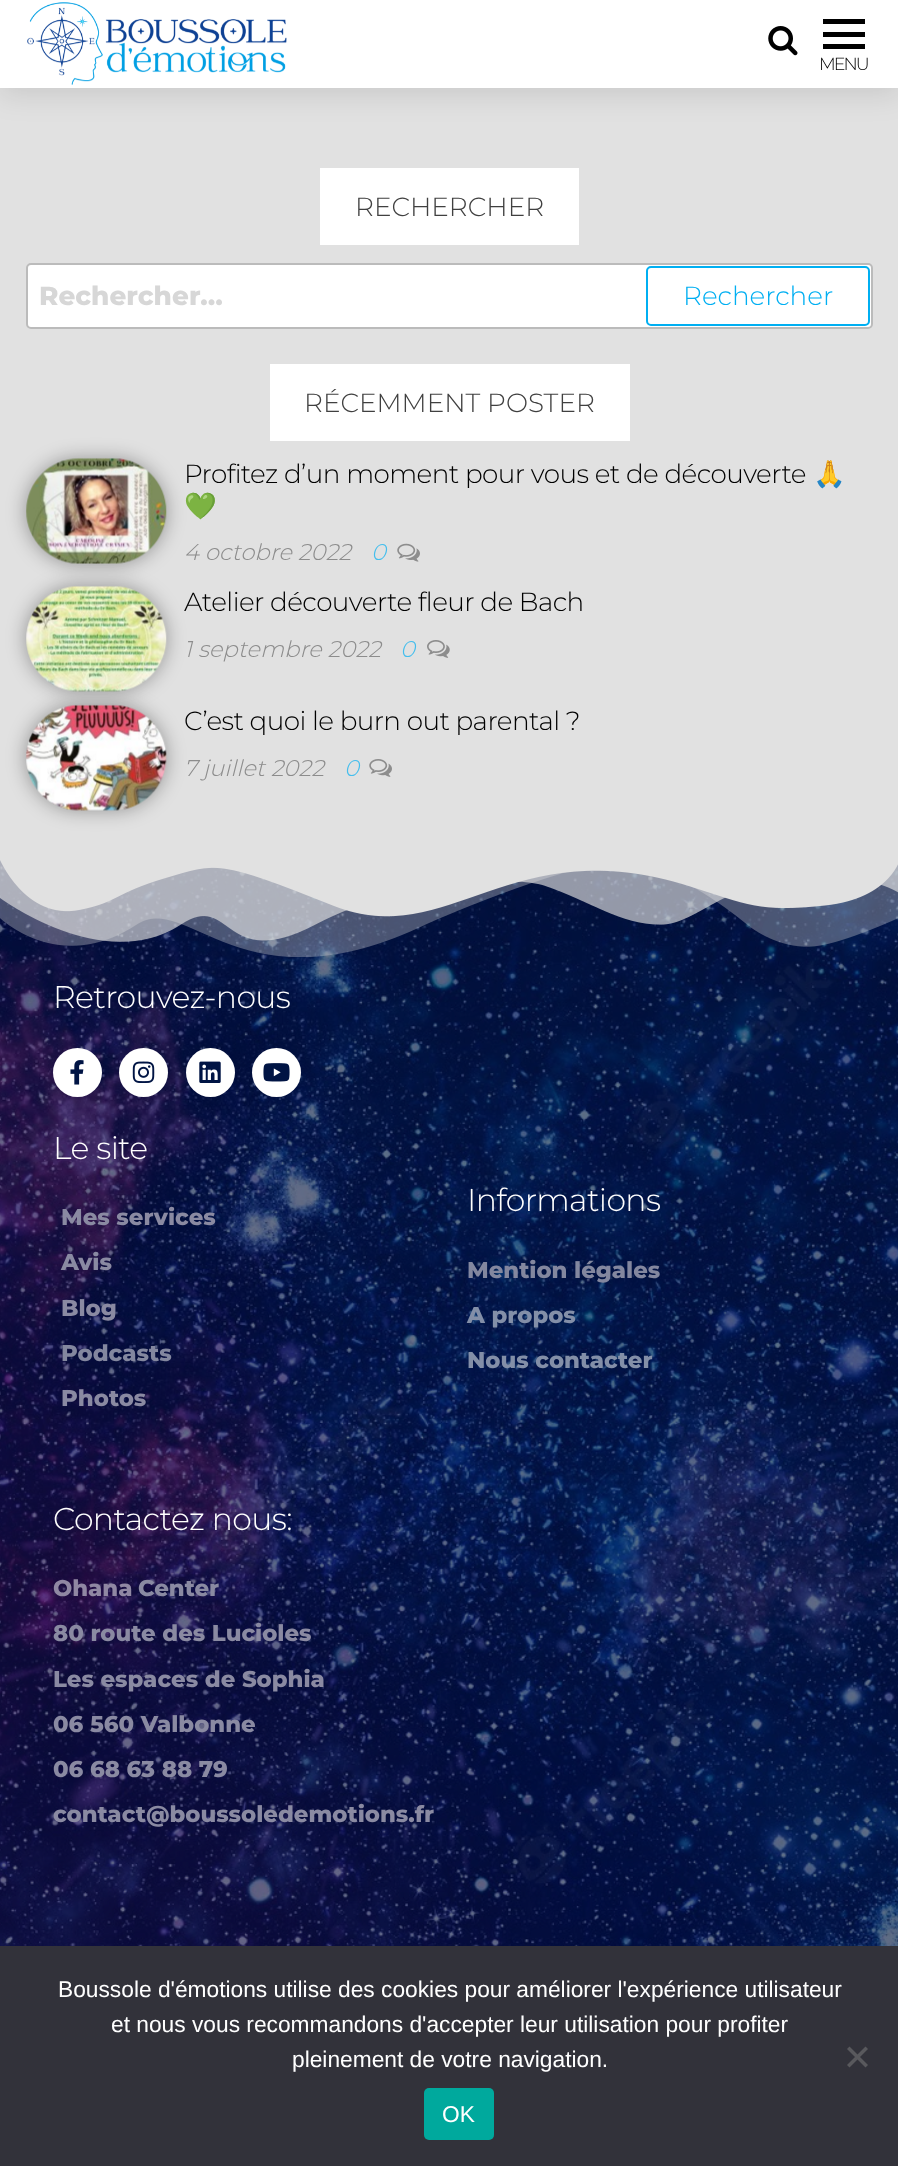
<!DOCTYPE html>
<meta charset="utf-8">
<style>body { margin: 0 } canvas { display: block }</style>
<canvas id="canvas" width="898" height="2166"></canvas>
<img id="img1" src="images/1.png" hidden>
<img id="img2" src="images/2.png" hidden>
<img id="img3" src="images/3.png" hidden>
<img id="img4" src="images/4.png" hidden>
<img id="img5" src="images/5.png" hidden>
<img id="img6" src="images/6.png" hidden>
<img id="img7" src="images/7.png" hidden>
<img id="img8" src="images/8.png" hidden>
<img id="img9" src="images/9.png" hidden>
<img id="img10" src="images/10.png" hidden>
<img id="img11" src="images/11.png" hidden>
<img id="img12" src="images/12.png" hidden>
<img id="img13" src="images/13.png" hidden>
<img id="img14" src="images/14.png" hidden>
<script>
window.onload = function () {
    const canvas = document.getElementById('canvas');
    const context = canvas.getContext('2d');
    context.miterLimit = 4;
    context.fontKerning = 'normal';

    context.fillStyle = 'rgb(225, 225, 225)';
    context.fillRect(0, 0, 898, 2166);
    context.fillStyle = 'rgba(0, 0, 0, 0.1)';
    context.filter = 'blur(14px)';
    context.beginPath();
    context.rect(0, 7, 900, 88);
    context.fill();
    context.filter = 'none';
    context.fillStyle = 'rgb(255, 255, 255)';
    context.fillRect(0, 0, 898, 88);
    context.drawImage(document.getElementById('img1'), 27, 2, 260, 83);
    context.drawImage(document.getElementById('img2'), 768, 26, 30, 30);
    context.fillStyle = 'rgb(0, 0, 0)';
    context.fillRect(823, 19, 42, 5);
    context.fillRect(823, 32, 42, 5);
    context.fillRect(823, 44, 42, 5);
    context.fillStyle = 'rgb(255, 255, 255)';
    context.fillRect(320, 168, 259, 77);
    context.beginPath();
    context.roundRect(27, 264, 845, 64, 4);
    context.fill();
    context.strokeStyle = 'rgb(187, 187, 187)';
    context.lineWidth = 2;
    context.stroke();
    context.beginPath();
    context.roundRect(647, 267, 222, 58, 4);
    context.strokeStyle = 'rgb(0, 175, 242)';
    context.stroke();
    context.fillRect(270, 364, 360, 77);
    context.fillStyle = 'rgba(0, 0, 0, 0.35)';
    context.filter = 'blur(9.5px)';
    context.beginPath();
    context.roundRect(26, 459, 140, 105, 52.5);
    context.fill();
    context.filter = 'none';
    context.drawImage(document.getElementById('img3'), 26, 458, 141, 106);
    context.drawImage(document.getElementById('img4'), 397, 543, 23, 19);
    context.filter = 'blur(9.5px)';
    context.beginPath();
    context.roundRect(26, 586, 140, 105, 52.5);
    context.fill();
    context.filter = 'none';
    context.drawImage(document.getElementById('img5'), 26, 586, 141, 106);
    context.drawImage(document.getElementById('img6'), 427, 640, 23, 18);
    context.filter = 'blur(9.5px)';
    context.beginPath();
    context.roundRect(26, 705, 140, 105, 52.5);
    context.fill();
    context.filter = 'none';
    context.drawImage(document.getElementById('img7'), 26, 704, 141, 107);
    context.drawImage(document.getElementById('img8'), 369, 759, 23, 18);
    context.drawImage(document.getElementById('img9'), 0, 860, 898, 1086);
    context.drawImage(document.getElementById('img10'), 0, 859, 898, 98);
    context.fillStyle = 'rgb(255, 255, 255)';
    context.beginPath();
    context.arc(77.5, 1072.5, 24.5, 0, 2 * Math.PI);
    context.fill();
    context.drawImage(document.getElementById('img11'), 70, 1060, 14, 25);
    context.beginPath();
    context.arc(143.5, 1072.5, 24.5, 0, 2 * Math.PI);
    context.fill();
    context.drawImage(document.getElementById('img12'), 132, 1061, 23, 22);
    context.beginPath();
    context.arc(210.5, 1072.5, 24.5, 0, 2 * Math.PI);
    context.fill();
    context.drawImage(document.getElementById('img13'), 199, 1061, 22, 22);
    context.beginPath();
    context.arc(276.5, 1072.5, 24.5, 0, 2 * Math.PI);
    context.fill();
    context.drawImage(document.getElementById('img14'), 263, 1063, 27, 19);
    context.fillStyle = 'rgb(50, 50, 58)';
    context.fillRect(0, 1946, 898, 220);
    context.fillStyle = 'rgb(89, 89, 93)';
    context.beginPath();
    context.moveTo(865.5, 2046.5);
    context.lineTo(868, 2049);
    context.lineTo(849.5, 2067.5);
    context.lineTo(847, 2065);
    context.closePath();
    context.fill();
    context.beginPath();
    context.moveTo(847, 2049);
    context.lineTo(849.5, 2046.5);
    context.lineTo(868, 2065);
    context.lineTo(865.5, 2067.5);
    context.closePath();
    context.fill();
    context.fillStyle = 'rgb(0, 169, 157)';
    context.beginPath();
    context.roundRect(424, 2088, 70, 52, 5);
    context.fill();
    context.letterSpacing = '-2px';
    context.font = '300 17.5px Montserrat';
    context.fillStyle = 'rgb(0, 0, 0)';
    context.fillText('MENU', 819, 70);
    context.letterSpacing = '0px';
    context.font = '300 26.25px Montserrat';
    context.fillStyle = 'rgb(64, 64, 64)';
    context.fillText('RECHERCHER', 355, 216);
    context.font = '800 26.25px Montserrat';
    context.fillStyle = 'rgb(215, 215, 215)';
    context.fillText('Rechercher…', 39, 305);
    context.font = '300 26.25px Montserrat';
    context.fillStyle = 'rgb(0, 175, 242)';
    context.fillText('Rechercher', 683, 305);
    context.fillStyle = 'rgb(64, 64, 64)';
    context.fillText('RÉCEMMENT POSTER', 304, 412);
    context.letterSpacing = '-0.55px';
    context.fillStyle = 'rgb(0, 0, 0)';
    context.fillText('Profitez d’un moment pour vous et de découverte', 184, 483);
    context.font = '26.25px Noto Color Emoji';
    context.fillText('🙏', 813, 483);
    context.fillText('💚', 184, 515);
    context.letterSpacing = '0px';
    context.font = 'italic 300 22.75px Montserrat';
    context.fillStyle = 'rgb(140, 140, 140)';
    context.fillText('4 octobre 2022', 184, 560);
    context.fillStyle = 'rgb(68, 190, 237)';
    context.fillText('0', 371, 560);
    context.letterSpacing = '-0.55px';
    context.font = '300 26.25px Montserrat';
    context.fillStyle = 'rgb(0, 0, 0)';
    context.fillText('Atelier découverte fleur de Bach', 184, 611);
    context.letterSpacing = '0px';
    context.font = 'italic 300 22.75px Montserrat';
    context.fillStyle = 'rgb(140, 140, 140)';
    context.fillText('1 septembre 2022', 184, 657);
    context.fillStyle = 'rgb(68, 190, 237)';
    context.fillText('0', 400, 657);
    context.letterSpacing = '-0.55px';
    context.font = '300 26.25px Montserrat';
    context.fillStyle = 'rgb(0, 0, 0)';
    context.fillText('C’est quoi le burn out parental ?', 184, 730);
    context.letterSpacing = '0px';
    context.font = 'italic 300 22.75px Montserrat';
    context.fillStyle = 'rgb(140, 140, 140)';
    context.fillText('7 juillet 2022', 184, 776);
    context.fillStyle = 'rgb(68, 190, 237)';
    context.fillText('0', 344, 776);
    context.letterSpacing = '-0.6px';
    context.font = '300 31.5px Montserrat';
    context.fillStyle = 'rgb(255, 255, 255)';
    context.fillText('Retrouvez-nous', 53, 1008);
    context.fillText('Le site', 53, 1159);
    context.letterSpacing = '0px';
    context.font = '800 22.75px Montserrat';
    context.fillStyle = 'rgb(138, 138, 162)';
    context.fillText('Mes services', 61, 1225);
    context.fillText('Avis', 61, 1270);
    context.fillText('Blog', 61, 1316);
    context.fillStyle = 'rgb(131, 135, 159)';
    context.fillText('Podcasts', 61, 1361);
    context.fillStyle = 'rgb(138, 138, 162)';
    context.fillText('Photos', 61, 1406);
    context.letterSpacing = '-0.6px';
    context.font = '300 31.5px Montserrat';
    context.fillStyle = 'rgb(255, 255, 255)';
    context.fillText('Informations', 467, 1211);
    context.letterSpacing = '0px';
    context.font = '800 22.75px Montserrat';
    context.fillStyle = 'rgb(131, 135, 159)';
    context.fillText('Mention légales', 467, 1278);
    context.fillStyle = 'rgb(131, 143, 168)';
    context.fillText('A propos', 467, 1323);
    context.fillText('Nous contacter', 467, 1368);
    context.letterSpacing = '-0.6px';
    context.font = '300 31.5px Montserrat';
    context.fillStyle = 'rgb(255, 255, 255)';
    context.fillText('Contactez nous:', 53, 1530);
    context.letterSpacing = '0px';
    context.font = '800 22.75px Montserrat';
    context.fillStyle = 'rgb(144, 136, 163)';
    context.fillText('Ohana', 53, 1596);
    context.fillStyle = 'rgb(138, 138, 162)';
    context.fillText('Center', 138, 1596);
    context.fillText('80 route des Lucioles', 53, 1641);
    context.fillText('Les espaces de Sophia', 53, 1687);
    context.fillText('06 560 Valbonne', 53, 1732);
    context.fillText('06 68 63 88 79', 53, 1777);
    context.fillText('contact@boussoledemotions.fr', 53, 1822);
    context.font = '22.75px Liberation Sans';
    context.fillStyle = 'rgb(255, 255, 255)';
    context.fillText('Boussole d\'émotions utilise des cookies pour améliorer l\'expérience utilisateur', 58, 1997);
    context.fillText('et nous vous recommandons d\'accepter leur utilisation pour profiter', 111, 2032);
    context.fillText('pleinement de votre navigation.', 292, 2067);
    context.fillText('OK', 442, 2122);
};
</script>
